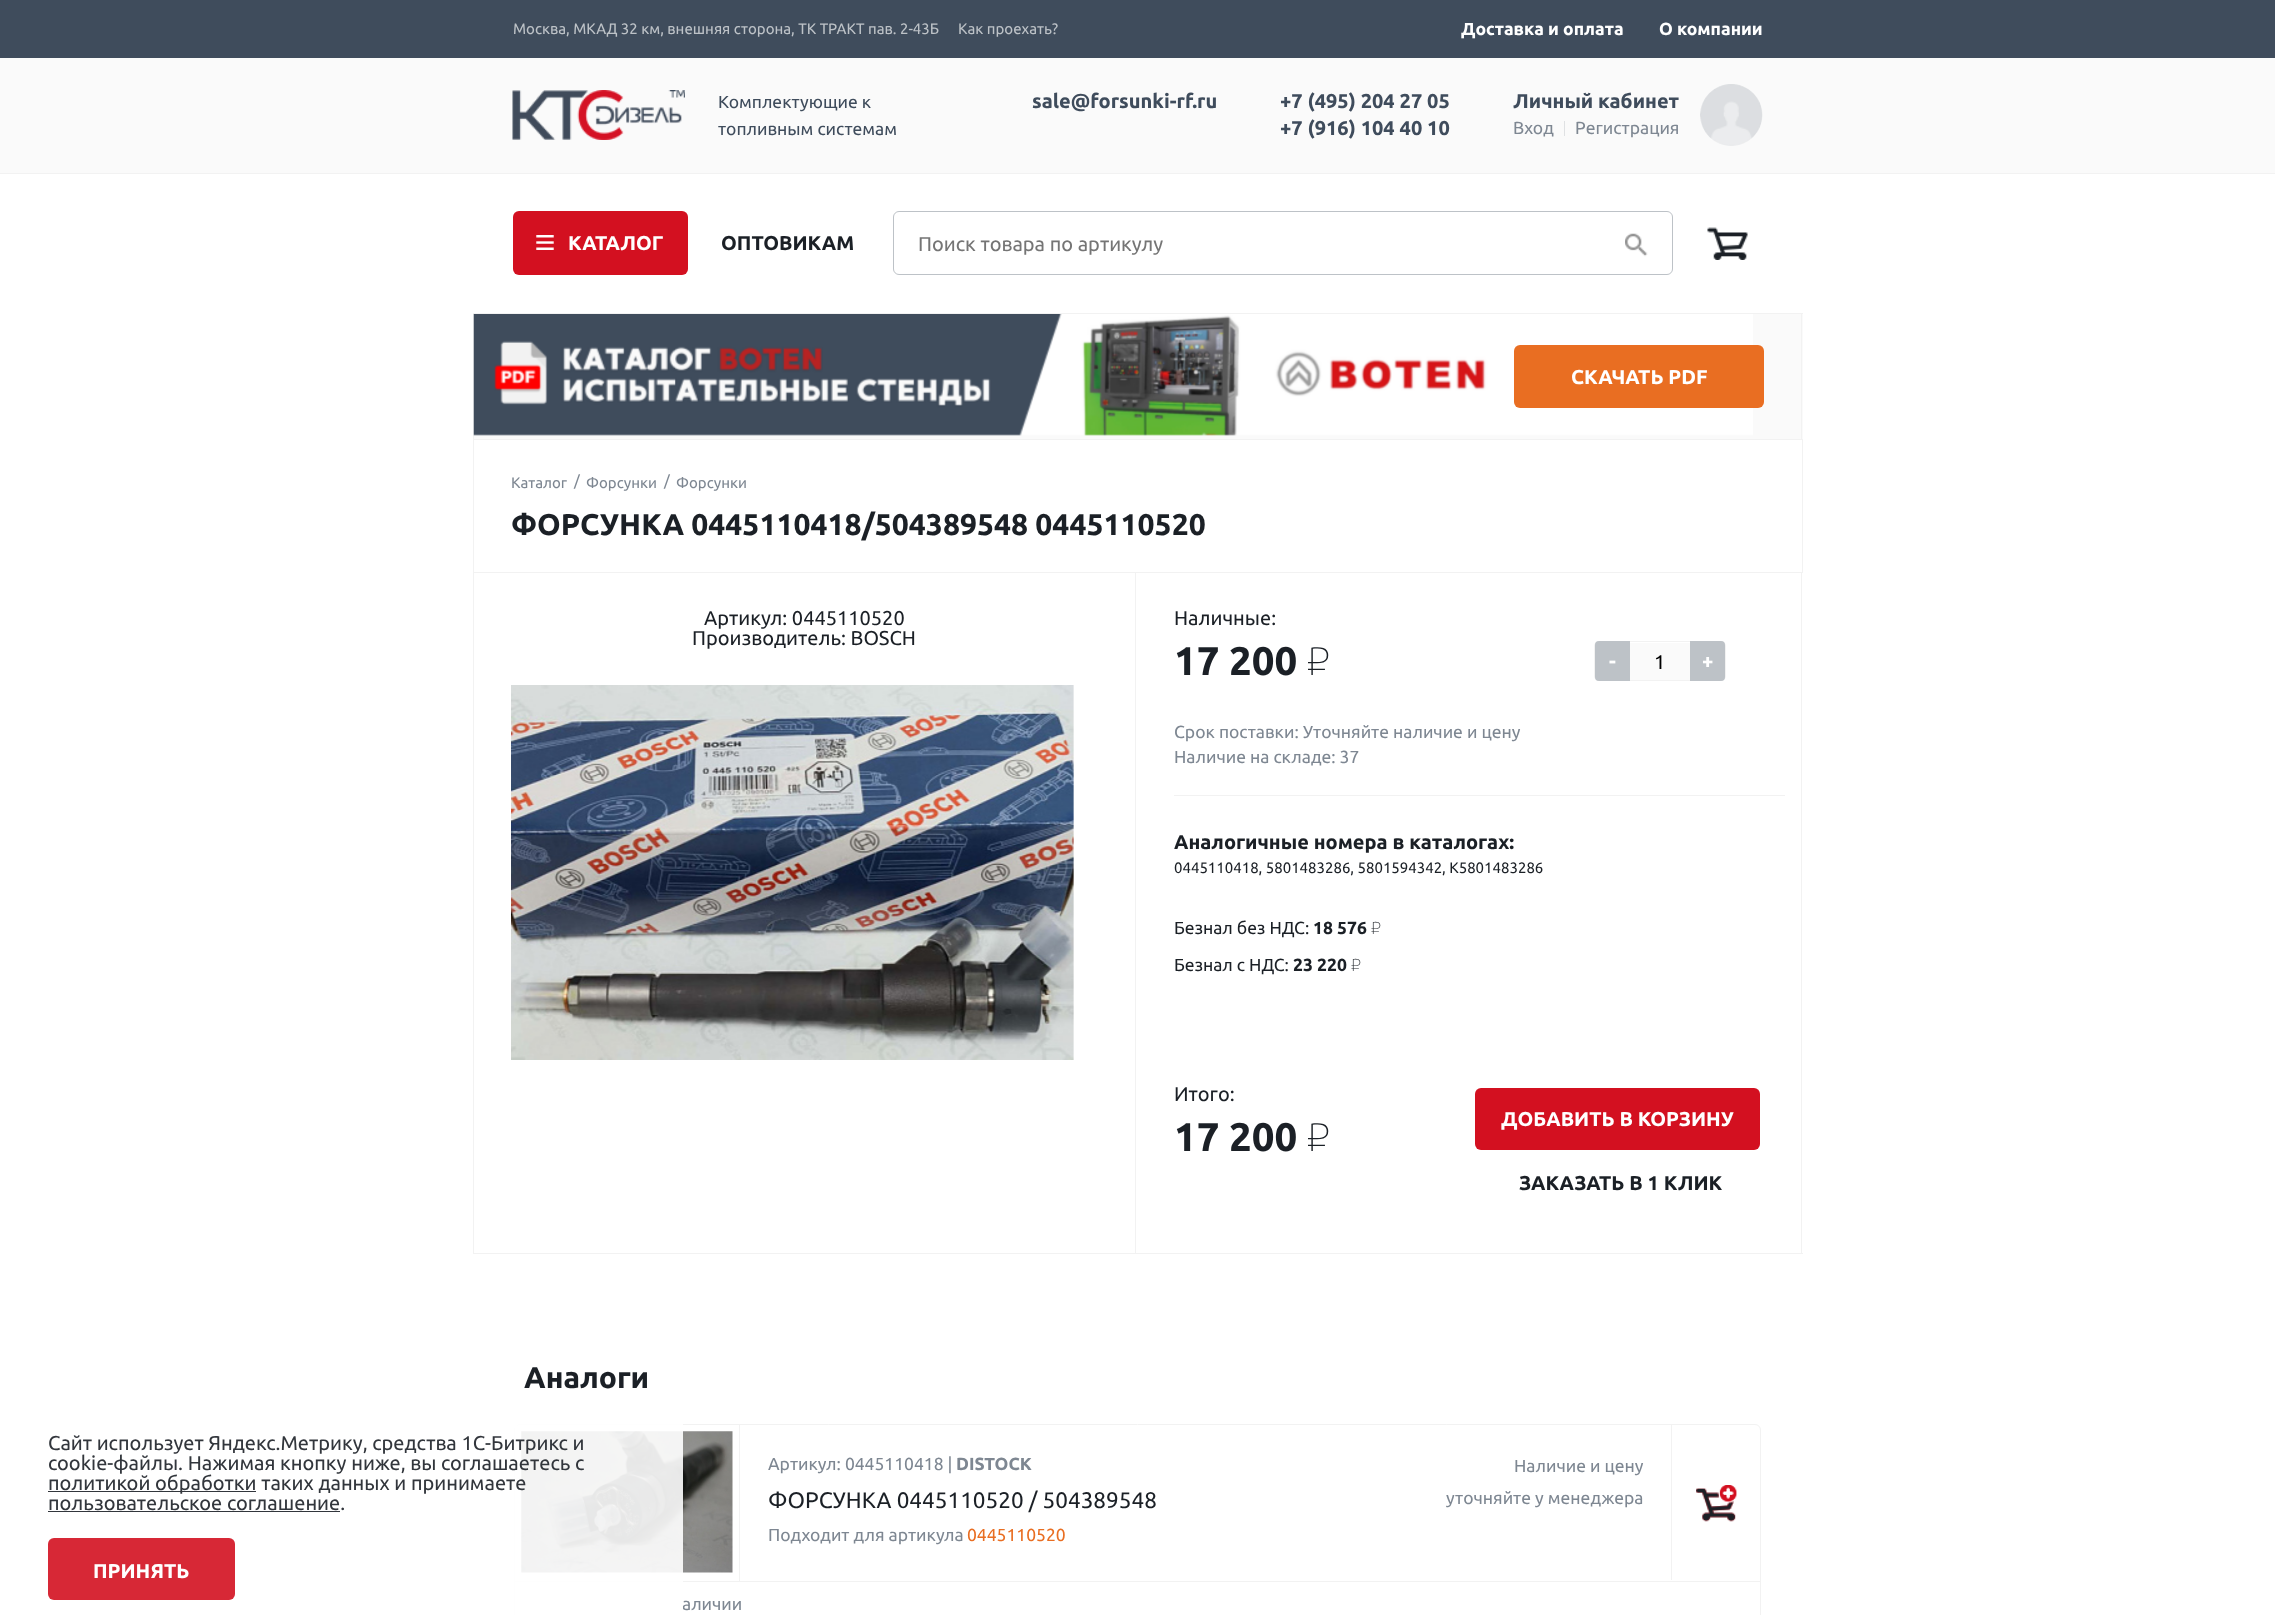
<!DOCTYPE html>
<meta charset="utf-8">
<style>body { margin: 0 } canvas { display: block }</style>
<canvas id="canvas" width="2275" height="1615"></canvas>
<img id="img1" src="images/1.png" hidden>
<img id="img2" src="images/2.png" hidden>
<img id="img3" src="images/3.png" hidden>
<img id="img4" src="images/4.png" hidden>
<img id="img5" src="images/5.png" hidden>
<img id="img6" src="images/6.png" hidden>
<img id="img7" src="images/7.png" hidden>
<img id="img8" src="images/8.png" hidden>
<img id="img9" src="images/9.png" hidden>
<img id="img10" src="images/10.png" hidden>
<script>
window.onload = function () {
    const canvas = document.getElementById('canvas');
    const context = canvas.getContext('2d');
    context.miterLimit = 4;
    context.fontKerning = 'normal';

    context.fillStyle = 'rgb(255, 255, 255)';
    context.fillRect(0, 0, 2275, 1615);
    context.fillStyle = 'rgb(63, 76, 92)';
    context.fillRect(0, 0, 2275, 58);
    context.fillStyle = 'rgb(250, 250, 250)';
    context.fillRect(0, 58, 2275, 115);
    context.fillStyle = 'rgb(242, 242, 242)';
    context.fillRect(0, 173, 2275, 1);
    context.drawImage(document.getElementById('img1'), 512, 90, 173, 50);
    context.fillStyle = 'rgb(223, 225, 227)';
    context.fillRect(1564, 121, 1, 15);
    context.drawImage(document.getElementById('img2'), 1700, 84, 63, 62);
    context.fillStyle = 'rgb(50, 54, 60)';
    context.fillRect(48, 1491, 208, 1);
    context.fillRect(48, 1511, 292, 1);
    context.fillStyle = 'rgb(215, 40, 54)';
    context.beginPath();
    context.roundRect(48, 1538, 187, 62, 6);
    context.fill();
    context.fillStyle = 'rgb(211, 16, 32)';
    context.beginPath();
    context.roundRect(513, 211, 175, 64, 6);
    context.fill();
    context.drawImage(document.getElementById('img3'), 536, 235, 18, 15);
    context.beginPath();
    context.roundRect(893.5, 211.5, 779, 63, 5.5);
    context.strokeStyle = 'rgb(189, 194, 199)';
    context.stroke();
    context.drawImage(document.getElementById('img4'), 1625, 233, 23, 24);
    context.drawImage(document.getElementById('img5'), 1707, 227, 41, 33);
    context.fillStyle = 'rgb(250, 250, 250)';
    context.fillRect(474, 314, 1329, 125);
    context.fillStyle = 'rgb(242, 242, 242)';
    context.fillRect(473, 313, 1330, 1);
    context.fillRect(1801, 313, 1, 126);
    context.fillRect(473, 313, 1, 126);
    context.drawImage(document.getElementById('img6'), 473, 314, 1280, 122);
    context.fillStyle = 'rgb(233, 110, 34)';
    context.beginPath();
    context.roundRect(1514, 345, 250, 63, 6);
    context.fill();
    context.strokeStyle = 'rgb(242, 242, 242)';
    context.strokeRect(473.5, 439.5, 1329, 133);
    context.fillStyle = 'rgb(242, 242, 242)';
    context.fillRect(1801, 573, 1, 681);
    context.fillRect(473, 1253, 1330, 1);
    context.fillRect(473, 573, 1, 681);
    context.drawImage(document.getElementById('img7'), 511, 685, 563, 375);
    context.fillRect(1135, 573, 1, 680);
    context.fillRect(1174, 795, 611, 1);
    context.beginPath();
    context.roundRect(1594.5, 641.5, 131, 39, 4.5);
    context.stroke();
    context.fillStyle = 'rgb(250, 250, 250)';
    context.beginPath();
    context.roundRect(1595, 643, 130, 37, 5);
    context.fill();
    context.fillStyle = 'rgb(189, 194, 199)';
    context.beginPath();
    context.roundRect(1595, 641, 35, 40, [4, 0, 0, 4]);
    context.fill();
    context.beginPath();
    context.roundRect(1690, 641, 35, 40, [0, 4, 4, 0]);
    context.fill();
    context.fillStyle = 'rgb(211, 16, 32)';
    context.beginPath();
    context.roundRect(1475, 1088, 285, 62, 6);
    context.fill();
    context.beginPath();
    context.roundRect(514.5, 1424.5, 1246, 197, 5.5);
    context.stroke();
    context.fillStyle = 'rgb(242, 242, 242)';
    context.fillRect(739, 1425, 1, 156);
    context.drawImage(document.getElementById('img8'), 521, 1431, 212, 142);
    context.fillRect(1671, 1425, 1, 155);
    context.drawImage(document.getElementById('img9'), 1696, 1485, 41, 37);
    context.drawImage(document.getElementById('img10'), 1696, 1485, 41, 37);
    context.fillRect(515, 1581, 1245, 1);
    context.font = '15px Ubuntu';
    context.fillStyle = 'rgb(189, 194, 199)';
    context.fillText('Москва, МКАД 32 км, внешняя сторона, ТК ТРАКТ пав. 2-43Б', 513, 34);
    context.fillText('Как проехать?', 958, 34);
    context.font = 'bold 17.5px Ubuntu';
    context.fillStyle = 'rgb(255, 255, 255)';
    context.fillText('Доставка и оплата', 1461, 35);
    context.fillText('О компании', 1659, 35);
    context.font = '17.5px Ubuntu';
    context.fillStyle = 'rgb(63, 76, 92)';
    context.fillText('Комплектующие к', 718, 108);
    context.fillText('топливным системам', 718, 135);
    context.font = 'bold 20px Ubuntu';
    context.fillText('sale@forsunki-rf.ru', 1032, 108);
    context.fillText('+7 (495) 204 27 05', 1280, 108);
    context.fillText('+7 (916) 104 40 10', 1280, 135);
    context.fillText('Личный кабинет', 1513, 108);
    context.font = '17.5px Ubuntu';
    context.fillStyle = 'rgb(126, 135, 146)';
    context.fillText('Вход', 1513, 134);
    context.fillText('Регистрация', 1575, 134);
    context.font = '20px Ubuntu';
    context.fillStyle = 'rgb(50, 54, 60)';
    context.fillText('пользовательское соглашение.', 48, 1510);
    context.font = 'bold 20px Ubuntu';
    context.fillStyle = 'rgb(255, 255, 255)';
    context.fillText('ПРИНЯТЬ', 93, 1578);
    context.fillText('КАТАЛОГ', 568, 250);
    context.fillStyle = 'rgb(27, 32, 38)';
    context.fillText('ОПТОВИКАМ', 721, 250);
    context.font = '20px Ubuntu';
    context.fillStyle = 'rgb(117, 117, 117)';
    context.fillText('Поиск товара по артикулу', 918, 251);
    context.font = 'bold 20px Ubuntu';
    context.fillStyle = 'rgb(255, 255, 255)';
    context.fillText('СКАЧАТЬ PDF', 1571, 384);
    context.font = '15px Ubuntu';
    context.fillStyle = 'rgb(126, 135, 146)';
    context.fillText('Каталог', 511, 488);
    context.fillText('/', 574, 486);
    context.fillText('Форсунки', 586, 488);
    context.fillText('/', 664, 486);
    context.fillText('Форсунки', 676, 488);
    context.font = 'bold 30px Ubuntu';
    context.fillStyle = 'rgb(27, 32, 38)';
    context.fillText('ФОРСУНКА 0445110418/504389548 0445110520', 511, 535);
    context.font = '20px Ubuntu';
    context.fillText('Артикул: 0445110520', 704, 625);
    context.fillText('Производитель: BOSCH', 692, 645);
    context.fillText('Наличные:', 1174, 625);
    context.font = 'bold 40px Ubuntu';
    context.fillText('17 200', 1174, 675);
    context.font = '100 40px Ubuntu';
    context.fillText('₽', 1307, 675);
    context.font = 'bold 20px Ubuntu';
    context.fillStyle = 'rgb(255, 255, 255)';
    context.fillText('-', 1609, 668);
    context.font = '20px Ubuntu';
    context.fillStyle = 'rgb(0, 0, 0)';
    context.fillText('1', 1654, 669);
    context.font = 'bold 20px Ubuntu';
    context.fillStyle = 'rgb(255, 255, 255)';
    context.fillText('+', 1702, 668);
    context.font = '17.5px Ubuntu';
    context.fillStyle = 'rgb(126, 135, 146)';
    context.fillText('Срок поставки: Уточняйте наличие и цену', 1174, 738);
    context.fillText('Наличие на складе: 37', 1174, 763);
    context.font = 'bold 20px Ubuntu';
    context.fillStyle = 'rgb(27, 32, 38)';
    context.fillText('Аналогичные номера в каталогах:', 1174, 849);
    context.font = '15px Ubuntu';
    context.fillText('0445110418, 5801483286, 5801594342, K5801483286', 1174, 873);
    context.font = '17.5px Ubuntu';
    context.fillText('Безнал без НДС:', 1174, 934);
    context.font = 'bold 17.5px Ubuntu';
    context.fillText('18 576', 1313, 934);
    context.font = '100 17.5px Ubuntu';
    context.fillText('₽', 1371, 934);
    context.font = '17.5px Ubuntu';
    context.fillText('Безнал с НДС:', 1174, 971);
    context.font = 'bold 17.5px Ubuntu';
    context.fillText('23 220', 1293, 971);
    context.font = '100 17.5px Ubuntu';
    context.fillText('₽', 1351, 971);
    context.font = '20px Ubuntu';
    context.fillText('Итого:', 1174, 1101);
    context.font = 'bold 40px Ubuntu';
    context.fillText('17 200', 1174, 1151);
    context.font = '100 40px Ubuntu';
    context.fillText('₽', 1307, 1151);
    context.font = 'bold 20px Ubuntu';
    context.fillStyle = 'rgb(255, 255, 255)';
    context.fillText('ДОБАВИТЬ В КОРЗИНУ', 1501, 1126);
    context.fillStyle = 'rgb(27, 32, 38)';
    context.fillText('ЗАКАЗАТЬ В 1 КЛИК', 1519, 1190);
    context.font = 'bold 30px Ubuntu';
    context.fillText('Аналоги', 524, 1388);
    context.font = '17.5px Ubuntu';
    context.fillStyle = 'rgb(126, 135, 146)';
    context.fillText('Артикул: 0445110418 |', 768, 1470);
    context.font = 'bold 17.5px Ubuntu';
    context.fillText('DISTOCK', 956, 1470);
    context.font = '22.5px Ubuntu';
    context.fillStyle = 'rgb(27, 32, 38)';
    context.fillText('ФОРСУНКА 0445110520 / 504389548', 768, 1508);
    context.font = '17.5px Ubuntu';
    context.fillStyle = 'rgb(126, 135, 146)';
    context.fillText('Подходит для артикула', 768, 1541);
    context.fillStyle = 'rgb(233, 110, 34)';
    context.fillText('0445110520', 967, 1541);
    context.fillStyle = 'rgb(126, 135, 146)';
    context.fillText('Наличие и цену', 1514, 1472);
    context.fillText('уточняйте у менеджера', 1446, 1504);
    context.fillText('аличии', 682, 1610);
    context.fillStyle = 'rgba(255, 255, 255, 0.9)';
    context.fillRect(514, 1424, 169, 191);
    context.font = '20px Ubuntu';
    context.fillStyle = 'rgb(50, 54, 60)';
    context.fillText('политикой обработки таких данных и принимаете', 48, 1490);
    context.fillText('cookie-файлы. Нажимая кнопку ниже, вы соглашаетесь с', 48, 1470);
    context.fillText('Сайт использует Яндекс.Метрику, средства 1С-Битрикс и', 48, 1450);
};
</script>
